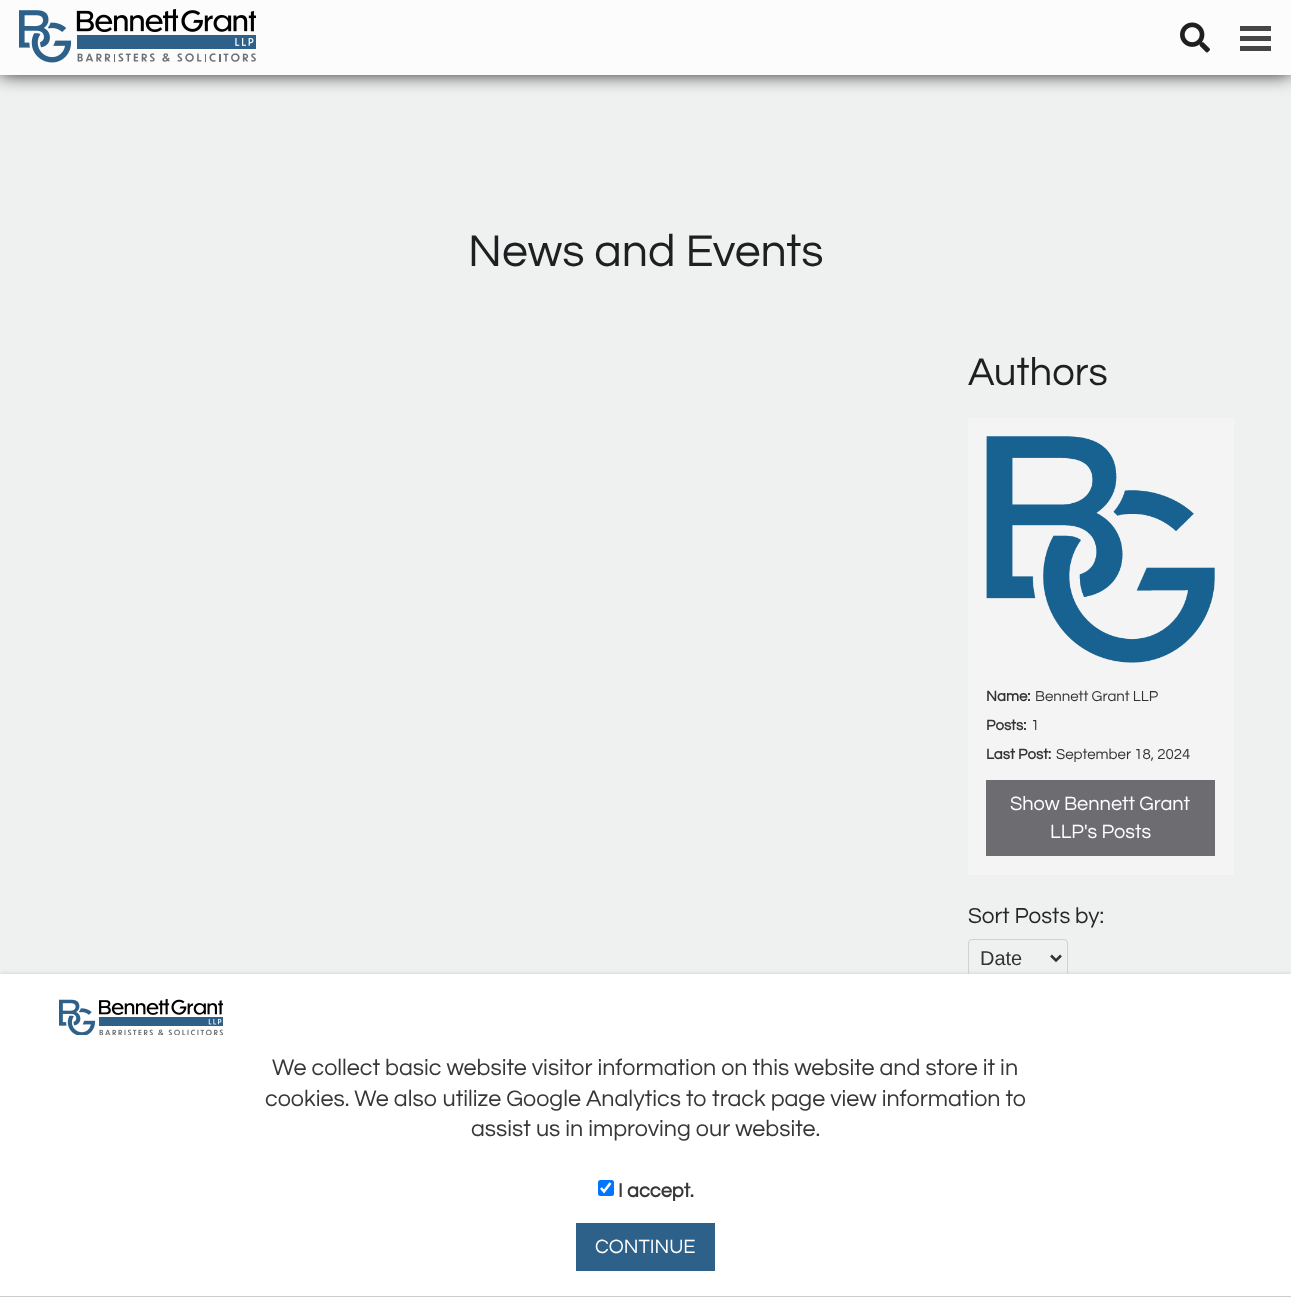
<!DOCTYPE html>
<meta charset="utf-8">
<style>body { margin: 0 } canvas { display: block }</style>
<canvas id="canvas" width="1291" height="1297"></canvas>
<img id="img1" src="images/1.png" hidden>
<img id="img2" src="images/2.png" hidden>
<img id="img3" src="images/3.png" hidden>
<img id="img4" src="images/4.png" hidden>
<script>
window.onload = function () {
    const canvas = document.getElementById('canvas');
    const context = canvas.getContext('2d');
    context.miterLimit = 4;
    context.fontKerning = 'normal';

    context.fillStyle = 'rgb(239, 240, 240)';
    context.fillRect(0, 0, 1291, 1297);
    context.fillStyle = 'rgb(0, 0, 0)';
    context.filter = 'blur(9.5px)';
    context.beginPath();
    context.rect(0, -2, 1291, 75);
    context.fill();
    context.filter = 'none';
    context.fillStyle = 'rgb(252, 252, 252)';
    context.fillRect(0, 0, 1291, 75);
    context.drawImage(document.getElementById('img1'), 19, 9, 237, 54);
    context.drawImage(document.getElementById('img2'), 1180, 22, 30, 31);
    context.fillStyle = 'rgb(70, 70, 70)';
    context.fillRect(1240, 36, 31, 5);
    context.fillRect(1240, 26, 31, 5);
    context.fillRect(1240, 46, 31, 5);
    context.fillStyle = 'rgb(245, 244, 244)';
    context.fillRect(968, 418, 266, 457);
    context.drawImage(document.getElementById('img3'), 986, 436, 229, 227);
    context.fillStyle = 'rgb(109, 109, 113)';
    context.fillRect(986, 780, 229, 76);
    context.beginPath();
    context.roundRect(968.5, 939.5, 99, 38, 3.5);
    context.strokeStyle = 'rgb(209, 209, 209)';
    context.stroke();
    context.beginPath();
    context.moveTo(1051, 955.5);
    context.lineTo(1056, 960.5);
    context.lineTo(1061, 955.5);
    context.strokeStyle = 'rgb(51, 51, 51)';
    context.lineWidth = 2.5;
    context.stroke();
    context.fillStyle = 'rgb(204, 204, 204)';
    context.filter = 'blur(2px)';
    context.beginPath();
    context.rect(0, 974, 1291, 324);
    context.fill();
    context.filter = 'none';
    context.fillStyle = 'rgb(255, 255, 255)';
    context.fillRect(0, 974, 1291, 322);
    context.fillStyle = 'rgb(204, 204, 204)';
    context.fillRect(0, 1296, 1291, 1);
    context.drawImage(document.getElementById('img4'), 59, 999, 164, 36);
    context.fillStyle = 'rgb(0, 117, 255)';
    context.beginPath();
    context.roundRect(598, 1180, 16, 16, 2.5);
    context.fill();
    context.beginPath();
    context.moveTo(601, 1188);
    context.lineTo(604, 1191.5);
    context.lineTo(610.5, 1183);
    context.strokeStyle = 'rgb(255, 255, 255)';
    context.lineWidth = 2.6;
    context.stroke();
    context.fillStyle = 'rgb(45, 97, 137)';
    context.fillRect(576, 1223, 139, 48);
    context.font = '46.25px Questrial';
    context.fillStyle = 'rgb(31, 31, 33)';
    context.fillText('News and Events', 468, 266);
    context.font = '40px Questrial';
    context.fillText('Authors', 968, 385);
    context.font = 'bold 15px Questrial';
    context.fillStyle = 'rgb(51, 51, 51)';
    context.fillText('Name:', 986, 701);
    context.font = '15px Questrial';
    context.fillText('Bennett Grant LLP', 1035, 701);
    context.font = 'bold 15px Questrial';
    context.fillText('Posts:', 986, 730);
    context.font = '15px Questrial';
    context.fillText('1', 1031, 730);
    context.font = 'bold 15px Questrial';
    context.fillText('Last Post:', 986, 759);
    context.font = '15px Questrial';
    context.fillText('September 18, 2024', 1056, 759);
    context.font = '20px Questrial';
    context.fillStyle = 'rgb(255, 255, 255)';
    context.fillText('Show Bennett Grant', 1010, 810);
    context.fillText('LLP\'s Posts', 1050, 838);
    context.font = '22.5px Questrial';
    context.fillStyle = 'rgb(38, 38, 38)';
    context.fillText('Sort Posts by:', 968, 923);
    context.font = '20px Liberation Sans';
    context.fillStyle = 'rgb(51, 51, 51)';
    context.fillText('Date', 980, 965);
    context.font = '23.3px Questrial';
    context.fillStyle = 'rgb(55, 55, 58)';
    context.fillText('We collect basic website visitor information on this website and store it in', 272, 1075);
    context.fillText('cookies. We also utilize Google Analytics to track page view information to', 265, 1106);
    context.fillText('assist us in improving our website.', 471, 1136);
    context.font = 'bold 20px Questrial';
    context.fillText('I accept.', 618, 1197);
    context.font = '20px Questrial';
    context.fillStyle = 'rgb(255, 255, 255)';
    context.fillText('CONTINUE', 595, 1253);
};
</script>
